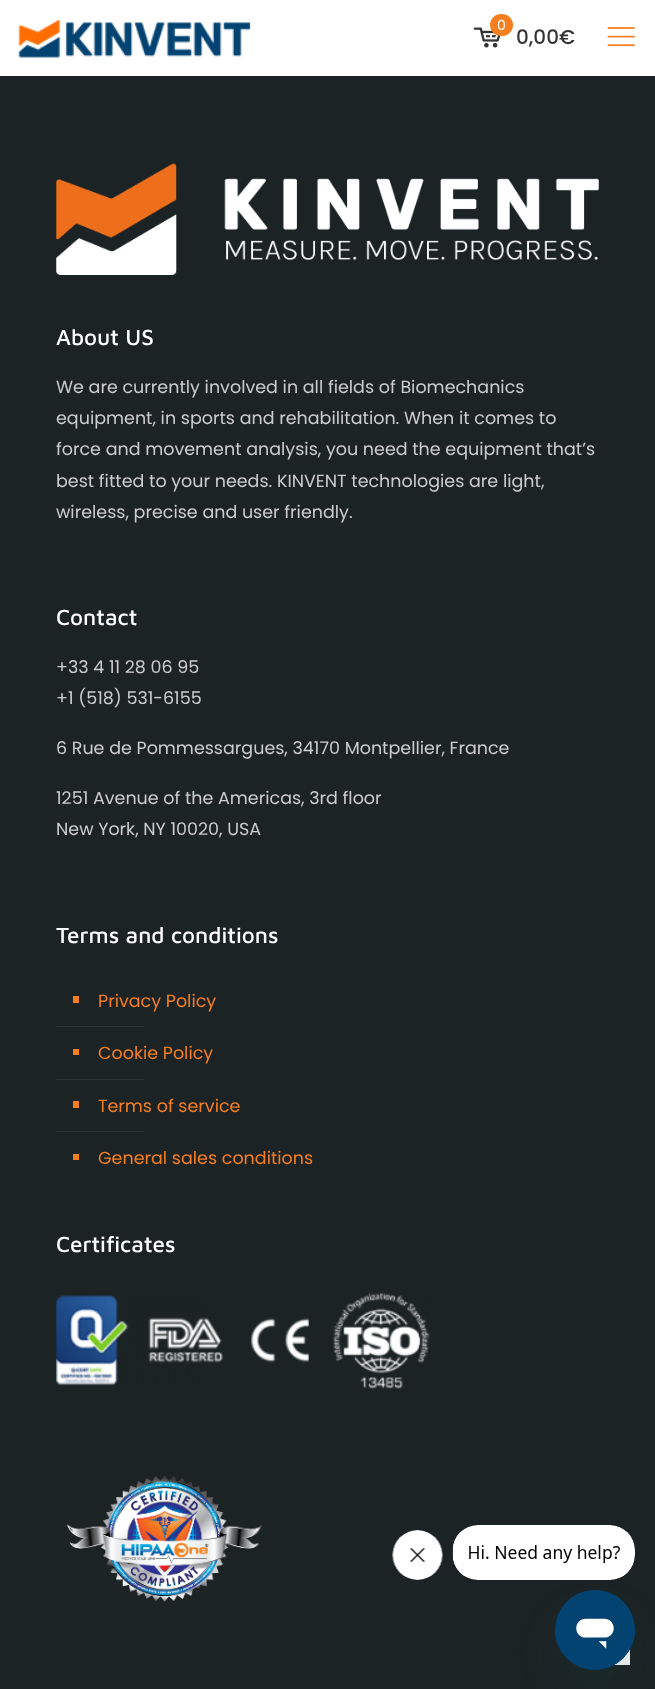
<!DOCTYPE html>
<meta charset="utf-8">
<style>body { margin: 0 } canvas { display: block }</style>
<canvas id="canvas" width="655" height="1689"></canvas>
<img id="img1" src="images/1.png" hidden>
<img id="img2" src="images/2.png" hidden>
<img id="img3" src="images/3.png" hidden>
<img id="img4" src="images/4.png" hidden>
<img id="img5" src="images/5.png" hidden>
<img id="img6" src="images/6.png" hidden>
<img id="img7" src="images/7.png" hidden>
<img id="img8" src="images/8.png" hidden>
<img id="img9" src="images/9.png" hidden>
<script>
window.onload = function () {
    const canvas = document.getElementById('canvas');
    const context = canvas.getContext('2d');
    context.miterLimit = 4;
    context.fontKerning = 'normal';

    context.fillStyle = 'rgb(28, 35, 37)';
    context.fillRect(0, 0, 655, 1689);
    context.fillStyle = 'rgb(255, 255, 255)';
    context.fillRect(0, 0, 655, 76);
    context.drawImage(document.getElementById('img1'), 473, 27, 28, 21);
    context.fillStyle = 'rgb(245, 126, 32)';
    context.beginPath();
    context.roundRect(490, 14, 23, 22, 11);
    context.fill();
    context.drawImage(document.getElementById('img2'), 18, 20, 233, 38);
    context.drawImage(document.getElementById('img3'), 607, 27, 28, 20);
    context.drawImage(document.getElementById('img4'), 56, 163, 543, 112);
    context.fillRect(73, 996, 6, 7);
    context.fillStyle = 'rgb(46, 53, 54)';
    context.fillRect(56, 1026, 88, 1);
    context.fillStyle = 'rgb(245, 126, 32)';
    context.fillRect(73, 1049, 6, 6);
    context.fillStyle = 'rgb(46, 53, 54)';
    context.fillRect(56, 1079, 88, 1);
    context.fillStyle = 'rgb(245, 126, 32)';
    context.fillRect(73, 1101, 6, 7);
    context.fillStyle = 'rgb(46, 53, 54)';
    context.fillRect(56, 1131, 88, 1);
    context.fillStyle = 'rgb(245, 126, 32)';
    context.fillRect(73, 1154, 6, 6);
    context.drawImage(document.getElementById('img5'), 56, 1292, 374, 97);
    context.drawImage(document.getElementById('img6'), 66, 1475, 197, 127);
    context.drawImage(document.getElementById('img7'), 392, 1530, 51, 50);
    context.drawImage(document.getElementById('img8'), 452, 1525, 183, 55);
    context.fillStyle = 'rgb(247, 247, 247)';
    context.fillRect(614, 1649, 16, 16);
    context.fillStyle = 'rgba(23, 73, 77, 0.15)';
    context.filter = 'blur(19px)';
    context.beginPath();
    context.roundRect(555, 1615, 80, 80, 40);
    context.fill();
    context.filter = 'none';
    context.drawImage(document.getElementById('img9'), 555, 1590, 80, 80);
    context.font = '14px Poppins';
    context.fillStyle = 'rgb(255, 255, 255)';
    context.fillText('0', 497, 30);
    context.font = '500 20px Poppins';
    context.fillStyle = 'rgb(51, 51, 51)';
    context.fillText('0,00€', 516, 44);
    context.font = '500 22.5px Maven Pro';
    context.fillStyle = 'rgb(255, 255, 255)';
    context.fillText('About US', 56, 345);
    context.font = '17.5px Poppins';
    context.fillStyle = 'rgb(204, 204, 204)';
    context.fillText('We are currently involved in all fields of Biomechanics', 56, 393);
    context.fillText('equipment, in sports and rehabilitation. When it comes to', 56, 424);
    context.fillText('force and movement analysis, you need the equipment that’s', 56, 455);
    context.fillText('best fitted to your needs. KINVENT technologies are light,', 56, 487);
    context.fillText('wireless, precise and user friendly.', 56, 518);
    context.font = '500 22.5px Maven Pro';
    context.fillStyle = 'rgb(255, 255, 255)';
    context.fillText('Contact', 56, 625);
    context.font = '17.5px Poppins';
    context.fillStyle = 'rgb(204, 204, 204)';
    context.fillText('+33 4 11 28 06 95', 56, 673);
    context.fillText('+1 (518) 531-6155', 56, 704);
    context.fillText('6 Rue de Pommessargues, 34170 Montpellier, France', 56, 754);
    context.fillText('1251 Avenue of the Americas, 3rd floor', 56, 804);
    context.fillText('New York, NY 10020, USA', 56, 835);
    context.font = '500 22.5px Maven Pro';
    context.fillStyle = 'rgb(255, 255, 255)';
    context.fillText('Terms and conditions', 56, 943);
    context.font = '17.5px Poppins';
    context.fillStyle = 'rgb(245, 126, 32)';
    context.fillText('Privacy Policy', 98, 1007);
    context.fillText('Cookie Policy', 98, 1059);
    context.fillText('Terms of service', 98, 1112);
    context.fillText('General sales conditions', 98, 1164);
    context.font = '500 22.5px Maven Pro';
    context.fillStyle = 'rgb(255, 255, 255)';
    context.fillText('Certificates', 56, 1252);
};
</script>
